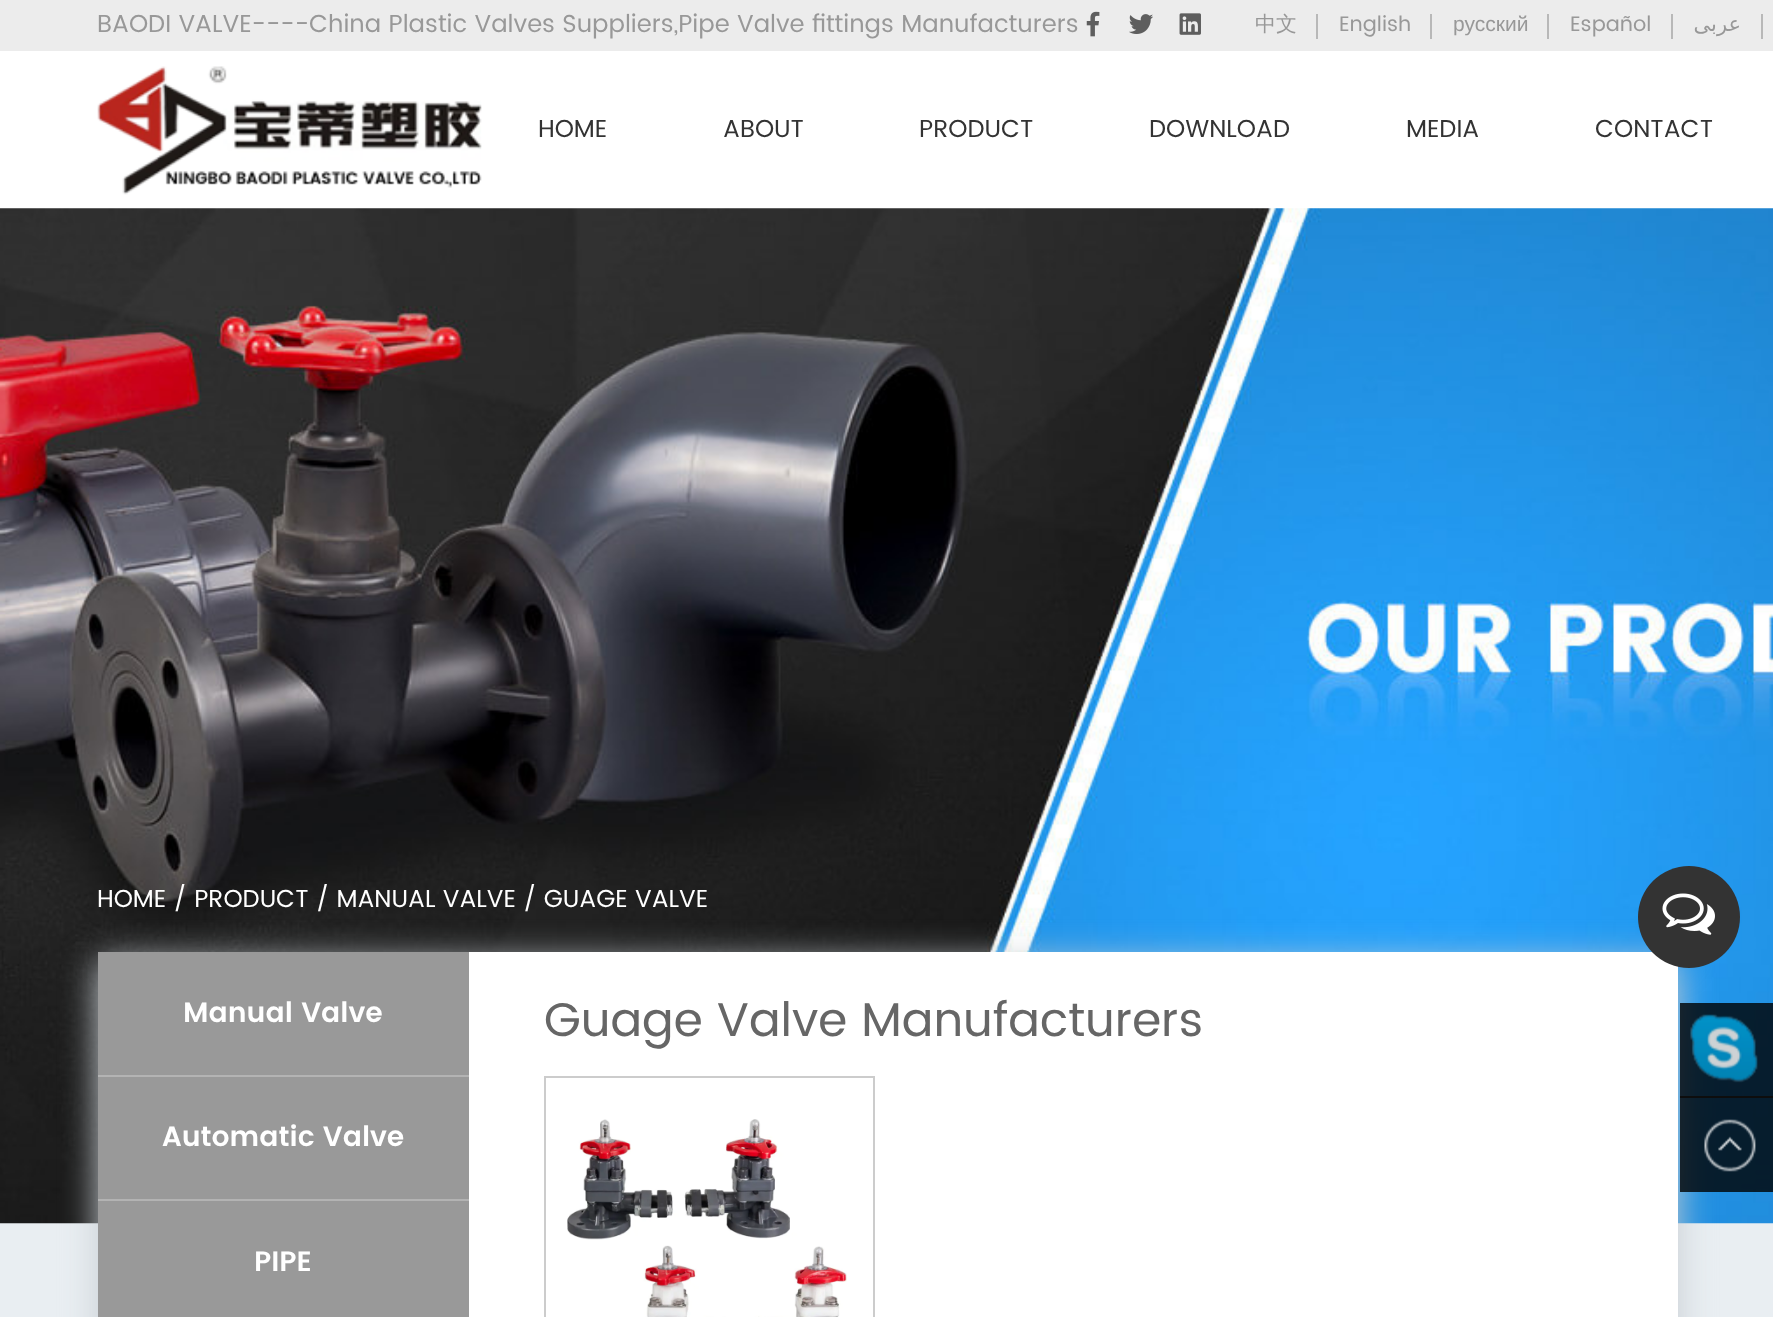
<!DOCTYPE html>
<meta charset="utf-8">
<style>body { margin: 0 } canvas { display: block }</style>
<canvas id="canvas" width="1773" height="1317"></canvas>
<img id="img1" src="images/1.png" hidden>
<img id="img2" src="images/2.png" hidden>
<img id="img3" src="images/3.png" hidden>
<img id="img4" src="images/4.png" hidden>
<img id="img5" src="images/5.png" hidden>
<img id="img6" src="images/6.png" hidden>
<img id="img7" src="images/7.png" hidden>
<img id="img8" src="images/8.png" hidden>
<img id="img9" src="images/9.png" hidden>
<script>
window.onload = function () {
    const canvas = document.getElementById('canvas');
    const context = canvas.getContext('2d');
    context.miterLimit = 4;
    context.fontKerning = 'normal';

    context.fillStyle = 'rgb(255, 255, 255)';
    context.fillRect(0, 0, 1773, 1317);
    context.fillStyle = 'rgb(236, 236, 236)';
    context.fillRect(0, 0, 1773, 51);
    context.drawImage(document.getElementById('img1'), 1086, 11, 14, 26);
    context.drawImage(document.getElementById('img2'), 1129, 14, 24, 20);
    context.drawImage(document.getElementById('img3'), 1179, 13, 22, 22);
    context.fillStyle = 'rgb(184, 184, 184)';
    context.fillRect(1316, 14, 2, 25);
    context.fillRect(1430, 14, 2, 25);
    context.fillRect(1547, 14, 2, 25);
    context.fillRect(1671, 14, 2, 25);
    context.fillRect(1761, 14, 2, 25);
    context.drawImage(document.getElementById('img4'), 97, 66, 385, 129);
    context.fillStyle = 'rgb(233, 238, 242)';
    context.fillRect(0, 1223, 1773, 94);
    context.drawImage(document.getElementById('img5'), 0, 208, 1773, 1016);
    context.fillStyle = 'rgb(199, 205, 210)';
    context.filter = 'blur(17.5px)';
    context.beginPath();
    context.rect(98, 961, 1580, 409);
    context.fill();
    context.filter = 'none';
    context.fillStyle = 'rgb(153, 153, 153)';
    context.fillRect(98, 952, 371, 365);
    context.fillStyle = 'rgb(179, 179, 179)';
    context.fillRect(98, 1075, 371, 2);
    context.fillRect(98, 1199, 371, 2);
    context.fillStyle = 'rgb(255, 255, 255)';
    context.fillRect(469, 952, 1209, 365);
    context.strokeStyle = 'rgb(204, 204, 204)';
    context.lineWidth = 2;
    context.strokeRect(545, 1077, 329, 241);
    context.drawImage(document.getElementById('img6'), 567, 1119, 280, 198);
    context.fillStyle = 'rgb(51, 51, 51)';
    context.beginPath();
    context.arc(1689, 917, 51, 0, 2 * Math.PI);
    context.fill();
    context.drawImage(document.getElementById('img7'), 1662, 893, 53, 42);
    context.fillStyle = 'rgb(68, 68, 68)';
    context.fillRect(1680, 1096, 93, 2);
    context.fillStyle = 'rgba(0, 0, 0, 0.8)';
    context.fillRect(1680, 1003, 93, 94);
    context.drawImage(document.getElementById('img8'), 1690, 1014, 68, 69);
    context.fillRect(1680, 1097, 93, 95);
    context.drawImage(document.getElementById('img9'), 1704, 1119, 52, 53);
    context.font = '24.5px Poppins';
    context.fillStyle = 'rgb(152, 152, 152)';
    context.fillText('BAODI VALVE----China Plastic Valves Suppliers,Pipe Valve fittings Manufacturers', 97, 32);
    context.font = '500 21px WenQuanYi Zen Hei';
    context.fillText('中文', 1255, 31);
    context.font = '21px Poppins';
    context.fillText('English', 1339, 31);
    context.font = '21px Liberation Sans';
    context.fillText('русский', 1453, 31);
    context.font = '21px Poppins';
    context.fillText('Español', 1570, 31);
    context.direction = 'rtl';
    context.font = '21px DejaVu Sans';
    context.fillText('عربى', 1741, 31);
    context.direction = 'ltr';
    context.font = '24.5px Poppins';
    context.fillStyle = 'rgb(51, 51, 51)';
    context.fillText('HOME', 538, 137);
    context.fillText('ABOUT', 723, 137);
    context.fillText('PRODUCT', 919, 137);
    context.fillText('DOWNLOAD', 1149, 137);
    context.fillText('MEDIA', 1406, 137);
    context.fillText('CONTACT', 1595, 137);
    context.fillStyle = 'rgb(255, 255, 255)';
    context.fillText('HOME / PRODUCT / MANUAL VALVE / GUAGE VALVE', 97, 907);
    context.font = '600 28px Poppins';
    context.fillText('Manual Valve', 183, 1022);
    context.fillText('Automatic Valve', 162, 1146);
    context.fillText('PIPE', 254, 1271);
    context.font = '47.25px Poppins';
    context.fillStyle = 'rgb(102, 102, 102)';
    context.fillText('Guage Valve Manufacturers', 544, 1036);
};
</script>
